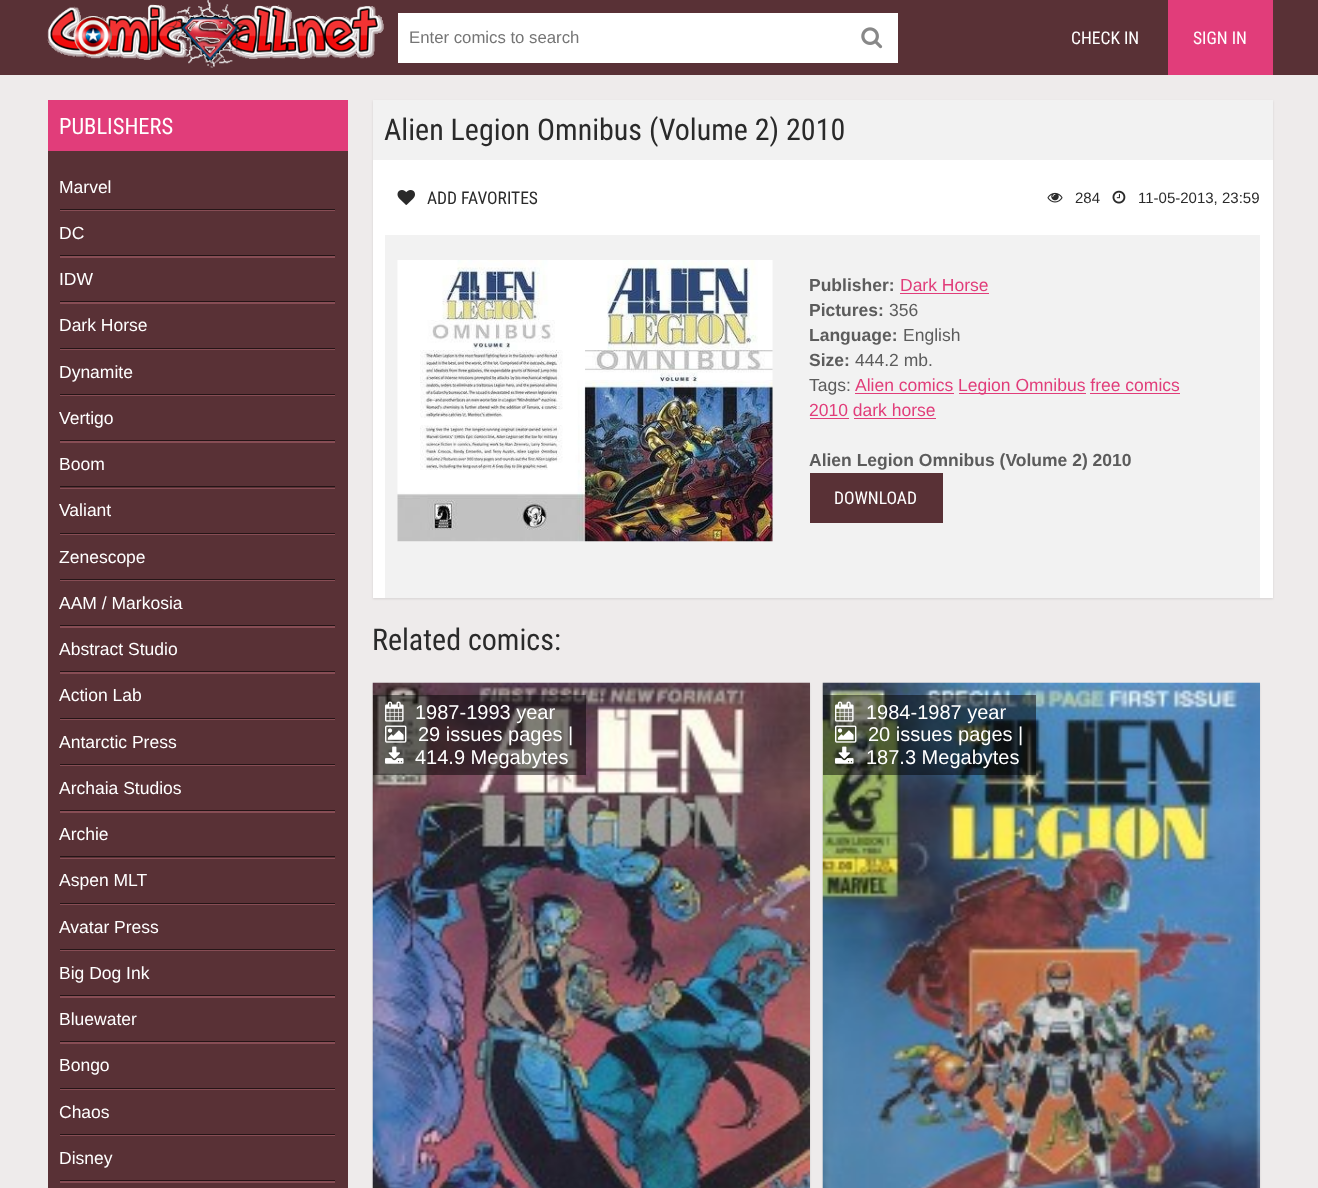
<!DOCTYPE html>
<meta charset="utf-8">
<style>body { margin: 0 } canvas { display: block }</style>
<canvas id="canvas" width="1318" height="1188"></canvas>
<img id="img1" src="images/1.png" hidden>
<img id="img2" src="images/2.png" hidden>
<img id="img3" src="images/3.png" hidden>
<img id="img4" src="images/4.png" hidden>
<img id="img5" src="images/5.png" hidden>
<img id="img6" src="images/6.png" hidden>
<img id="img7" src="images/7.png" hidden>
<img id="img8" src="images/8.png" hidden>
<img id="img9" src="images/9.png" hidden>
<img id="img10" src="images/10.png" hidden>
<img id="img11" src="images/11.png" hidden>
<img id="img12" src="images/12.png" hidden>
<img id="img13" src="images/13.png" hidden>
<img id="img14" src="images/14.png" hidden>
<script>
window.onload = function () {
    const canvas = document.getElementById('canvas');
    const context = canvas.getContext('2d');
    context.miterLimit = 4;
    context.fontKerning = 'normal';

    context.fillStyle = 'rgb(238, 235, 235)';
    context.fillRect(0, 0, 1318, 1188);
    context.fillStyle = 'rgb(89, 49, 54)';
    context.fillRect(0, 0, 1318, 75);
    context.drawImage(document.getElementById('img1'), 47, 0, 337, 68);
    context.fillStyle = 'rgb(255, 255, 255)';
    context.fillRect(398, 13, 500, 50);
    context.drawImage(document.getElementById('img2'), 861, 27, 22, 22);
    context.fillStyle = 'rgb(225, 61, 122)';
    context.fillRect(1168, 0, 105, 75);
    context.fillStyle = 'rgb(89, 49, 54)';
    context.fillRect(48, 151, 300, 1037);
    context.fillStyle = 'rgb(225, 61, 122)';
    context.fillRect(48, 100, 300, 51);
    context.fillStyle = 'rgb(135, 77, 85)';
    context.fillRect(60, 210, 275, 1);
    context.fillStyle = 'rgb(37, 21, 23)';
    context.fillRect(60, 209, 275, 1);
    context.fillStyle = 'rgb(135, 77, 85)';
    context.fillRect(60, 256, 275, 2);
    context.fillStyle = 'rgb(37, 21, 23)';
    context.fillRect(60, 255, 275, 1);
    context.fillStyle = 'rgb(135, 77, 85)';
    context.fillRect(60, 302, 275, 2);
    context.fillStyle = 'rgb(37, 21, 23)';
    context.fillRect(60, 301, 275, 1);
    context.fillStyle = 'rgb(135, 77, 85)';
    context.fillRect(60, 349, 275, 1);
    context.fillStyle = 'rgb(37, 21, 23)';
    context.fillRect(60, 348, 275, 1);
    context.fillStyle = 'rgb(135, 77, 85)';
    context.fillRect(60, 395, 275, 1);
    context.fillStyle = 'rgb(37, 21, 23)';
    context.fillRect(60, 394, 275, 1);
    context.fillStyle = 'rgb(135, 77, 85)';
    context.fillRect(60, 441, 275, 2);
    context.fillStyle = 'rgb(37, 21, 23)';
    context.fillRect(60, 440, 275, 1);
    context.fillStyle = 'rgb(135, 77, 85)';
    context.fillRect(60, 488, 275, 1);
    context.fillStyle = 'rgb(37, 21, 23)';
    context.fillRect(60, 486, 275, 1);
    context.fillStyle = 'rgb(135, 77, 85)';
    context.fillRect(60, 534, 275, 1);
    context.fillStyle = 'rgb(37, 21, 23)';
    context.fillRect(60, 533, 275, 1);
    context.fillStyle = 'rgb(135, 77, 85)';
    context.fillRect(60, 580, 275, 1);
    context.fillStyle = 'rgb(37, 21, 23)';
    context.fillRect(60, 579, 275, 1);
    context.fillStyle = 'rgb(135, 77, 85)';
    context.fillRect(60, 626, 275, 2);
    context.fillStyle = 'rgb(37, 21, 23)';
    context.fillRect(60, 625, 275, 1);
    context.fillStyle = 'rgb(135, 77, 85)';
    context.fillRect(60, 672, 275, 2);
    context.fillStyle = 'rgb(37, 21, 23)';
    context.fillRect(60, 671, 275, 1);
    context.fillStyle = 'rgb(135, 77, 85)';
    context.fillRect(60, 719, 275, 1);
    context.fillStyle = 'rgb(37, 21, 23)';
    context.fillRect(60, 718, 275, 1);
    context.fillStyle = 'rgb(135, 77, 85)';
    context.fillRect(60, 765, 275, 1);
    context.fillStyle = 'rgb(37, 21, 23)';
    context.fillRect(60, 764, 275, 1);
    context.fillStyle = 'rgb(135, 77, 85)';
    context.fillRect(60, 811, 275, 2);
    context.fillStyle = 'rgb(37, 21, 23)';
    context.fillRect(60, 810, 275, 1);
    context.fillStyle = 'rgb(135, 77, 85)';
    context.fillRect(60, 858, 275, 1);
    context.fillStyle = 'rgb(37, 21, 23)';
    context.fillRect(60, 856, 275, 1);
    context.fillStyle = 'rgb(135, 77, 85)';
    context.fillRect(60, 904, 275, 1);
    context.fillStyle = 'rgb(37, 21, 23)';
    context.fillRect(60, 903, 275, 1);
    context.fillStyle = 'rgb(135, 77, 85)';
    context.fillRect(60, 950, 275, 1);
    context.fillStyle = 'rgb(37, 21, 23)';
    context.fillRect(60, 949, 275, 1);
    context.fillStyle = 'rgb(135, 77, 85)';
    context.fillRect(60, 996, 275, 2);
    context.fillStyle = 'rgb(37, 21, 23)';
    context.fillRect(60, 995, 275, 1);
    context.fillStyle = 'rgb(135, 77, 85)';
    context.fillRect(60, 1042, 275, 2);
    context.fillStyle = 'rgb(37, 21, 23)';
    context.fillRect(60, 1041, 275, 1);
    context.fillStyle = 'rgb(135, 77, 85)';
    context.fillRect(60, 1089, 275, 1);
    context.fillStyle = 'rgb(37, 21, 23)';
    context.fillRect(60, 1088, 275, 1);
    context.fillStyle = 'rgb(135, 77, 85)';
    context.fillRect(60, 1135, 275, 1);
    context.fillStyle = 'rgb(37, 21, 23)';
    context.fillRect(60, 1134, 275, 1);
    context.fillStyle = 'rgb(135, 77, 85)';
    context.fillRect(60, 1181, 275, 2);
    context.fillStyle = 'rgb(37, 21, 23)';
    context.fillRect(60, 1180, 275, 1);
    context.fillStyle = 'rgba(0, 0, 0, 0.1)';
    context.filter = 'blur(1px)';
    context.beginPath();
    context.rect(373, 101, 900, 498);
    context.fill();
    context.filter = 'none';
    context.fillStyle = 'rgb(255, 255, 255)';
    context.fillRect(373, 160, 900, 438);
    context.fillStyle = 'rgb(242, 242, 242)';
    context.fillRect(373, 100, 900, 60);
    context.drawImage(document.getElementById('img3'), 397, 190, 18, 15);
    context.drawImage(document.getElementById('img4'), 1047, 192, 16, 11);
    context.drawImage(document.getElementById('img5'), 1112, 190, 14, 14);
    context.fillRect(385, 235, 875, 363);
    context.drawImage(document.getElementById('img6'), 397, 260, 376, 282);
    context.fillStyle = 'rgb(225, 61, 122)';
    context.fillRect(900, 293, 89, 1);
    context.fillRect(855, 393, 99, 1);
    context.fillRect(959, 393, 127, 1);
    context.fillRect(1090, 393, 90, 1);
    context.fillRect(810, 418, 39, 1);
    context.fillRect(854, 418, 82, 1);
    context.fillStyle = 'rgb(89, 49, 54)';
    context.fillRect(810, 473, 133, 50);
    context.fillStyle = 'rgba(0, 0, 0, 0.1)';
    context.filter = 'blur(1px)';
    context.beginPath();
    context.rect(373, 684, 437, 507);
    context.fill();
    context.filter = 'none';
    context.drawImage(document.getElementById('img7'), 372, 682, 438, 506);
    context.fillStyle = 'rgba(0, 0, 0, 0.5)';
    context.fillRect(373, 695, 213, 80);
    context.drawImage(document.getElementById('img8'), 385, 701, 19, 21);
    context.drawImage(document.getElementById('img9'), 385, 725, 22, 18);
    context.drawImage(document.getElementById('img10'), 385, 746, 19, 18);
    context.fillStyle = 'rgba(0, 0, 0, 0.1)';
    context.filter = 'blur(1px)';
    context.beginPath();
    context.rect(823, 684, 437, 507);
    context.fill();
    context.filter = 'none';
    context.drawImage(document.getElementById('img11'), 822, 682, 438, 506);
    context.fillStyle = 'rgba(0, 0, 0, 0.5)';
    context.fillRect(823, 695, 213, 80);
    context.drawImage(document.getElementById('img12'), 835, 701, 19, 21);
    context.drawImage(document.getElementById('img13'), 835, 725, 22, 18);
    context.drawImage(document.getElementById('img14'), 835, 746, 19, 18);
    context.font = '16.75px Liberation Sans';
    context.fillStyle = 'rgb(117, 117, 117)';
    context.fillText('Enter comics to search', 409, 43);
    context.font = '17.5px Roboto Condensed';
    context.fillStyle = 'rgb(255, 255, 255)';
    context.fillText('CHECK IN', 1071, 44);
    context.fillText('SIGN IN', 1193, 44);
    context.font = '22.5px Roboto Condensed';
    context.fillText('PUBLISHERS', 59, 134);
    context.font = '17.5px Liberation Sans';
    context.fillText('Marvel', 59, 193);
    context.fillText('DC', 59, 239);
    context.fillText('IDW', 59, 285);
    context.fillText('Dark Horse', 59, 331);
    context.fillText('Dynamite', 59, 378);
    context.fillText('Vertigo', 59, 424);
    context.fillText('Boom', 59, 470);
    context.fillText('Valiant', 59, 516);
    context.fillText('Zenescope', 59, 563);
    context.fillText('AAM / Markosia', 59, 609);
    context.fillText('Abstract Studio', 59, 655);
    context.fillText('Action Lab', 59, 701);
    context.fillText('Antarctic Press', 59, 748);
    context.fillText('Archaia Studios', 59, 794);
    context.fillText('Archie', 59, 840);
    context.fillText('Aspen MLT', 59, 886);
    context.fillText('Avatar Press', 59, 933);
    context.fillText('Big Dog Ink', 59, 979);
    context.fillText('Bluewater', 59, 1025);
    context.fillText('Bongo', 59, 1071);
    context.fillText('Chaos', 59, 1118);
    context.fillText('Disney', 59, 1164);
    context.font = '30px Roboto Condensed';
    context.fillStyle = 'rgb(42, 42, 42)';
    context.fillText('Alien Legion Omnibus (Volume 2) 2010', 384, 140);
    context.font = '17.5px Roboto Condensed';
    context.fillText('ADD FAVORITES', 427, 204);
    context.font = '15px Liberation Sans';
    context.fillText('284', 1075, 203);
    context.fillText('11-05-2013, 23:59', 1138, 203);
    context.font = 'bold 17.5px Liberation Sans';
    context.fillStyle = 'rgb(92, 92, 92)';
    context.fillText('Publisher:', 809, 291);
    context.font = '17.5px Liberation Sans';
    context.fillStyle = 'rgb(225, 61, 122)';
    context.fillText('Dark Horse', 900, 291);
    context.font = 'bold 17.5px Liberation Sans';
    context.fillStyle = 'rgb(92, 92, 92)';
    context.fillText('Pictures:', 809, 316);
    context.font = '17.5px Liberation Sans';
    context.fillText('356', 889, 316);
    context.font = 'bold 17.5px Liberation Sans';
    context.fillText('Language:', 809, 341);
    context.font = '17.5px Liberation Sans';
    context.fillText('English', 903, 341);
    context.font = 'bold 17.5px Liberation Sans';
    context.fillText('Size:', 809, 366);
    context.font = '17.5px Liberation Sans';
    context.fillText('444.2 mb.', 855, 366);
    context.fillText('Tags:', 809, 391);
    context.fillStyle = 'rgb(225, 61, 122)';
    context.fillText('Alien comics', 855, 391);
    context.fillText('Legion Omnibus free comics', 958, 391);
    context.fillText('2010 dark horse', 809, 416);
    context.font = 'bold 17.5px Liberation Sans';
    context.fillStyle = 'rgb(92, 92, 92)';
    context.fillText('Alien Legion Omnibus (Volume 2) 2010', 809, 466);
    context.font = '17.5px Roboto Condensed';
    context.fillStyle = 'rgb(255, 255, 255)';
    context.fillText('DOWNLOAD', 834, 504);
    context.font = '30px Roboto Condensed';
    context.fillStyle = 'rgb(42, 42, 42)';
    context.fillText('Related comics:', 372, 650);
    context.font = '20px Liberation Sans';
    context.fillStyle = 'rgb(255, 255, 255)';
    context.fillText('1987-1993 year', 415, 719);
    context.fillText('29 issues pages |', 418, 741);
    context.fillText('414.9 Megabytes', 415, 764);
    context.fillText('1984-1987 year', 866, 719);
    context.fillText('20 issues pages |', 868, 741);
    context.fillText('187.3 Megabytes', 866, 764);
};
</script>
